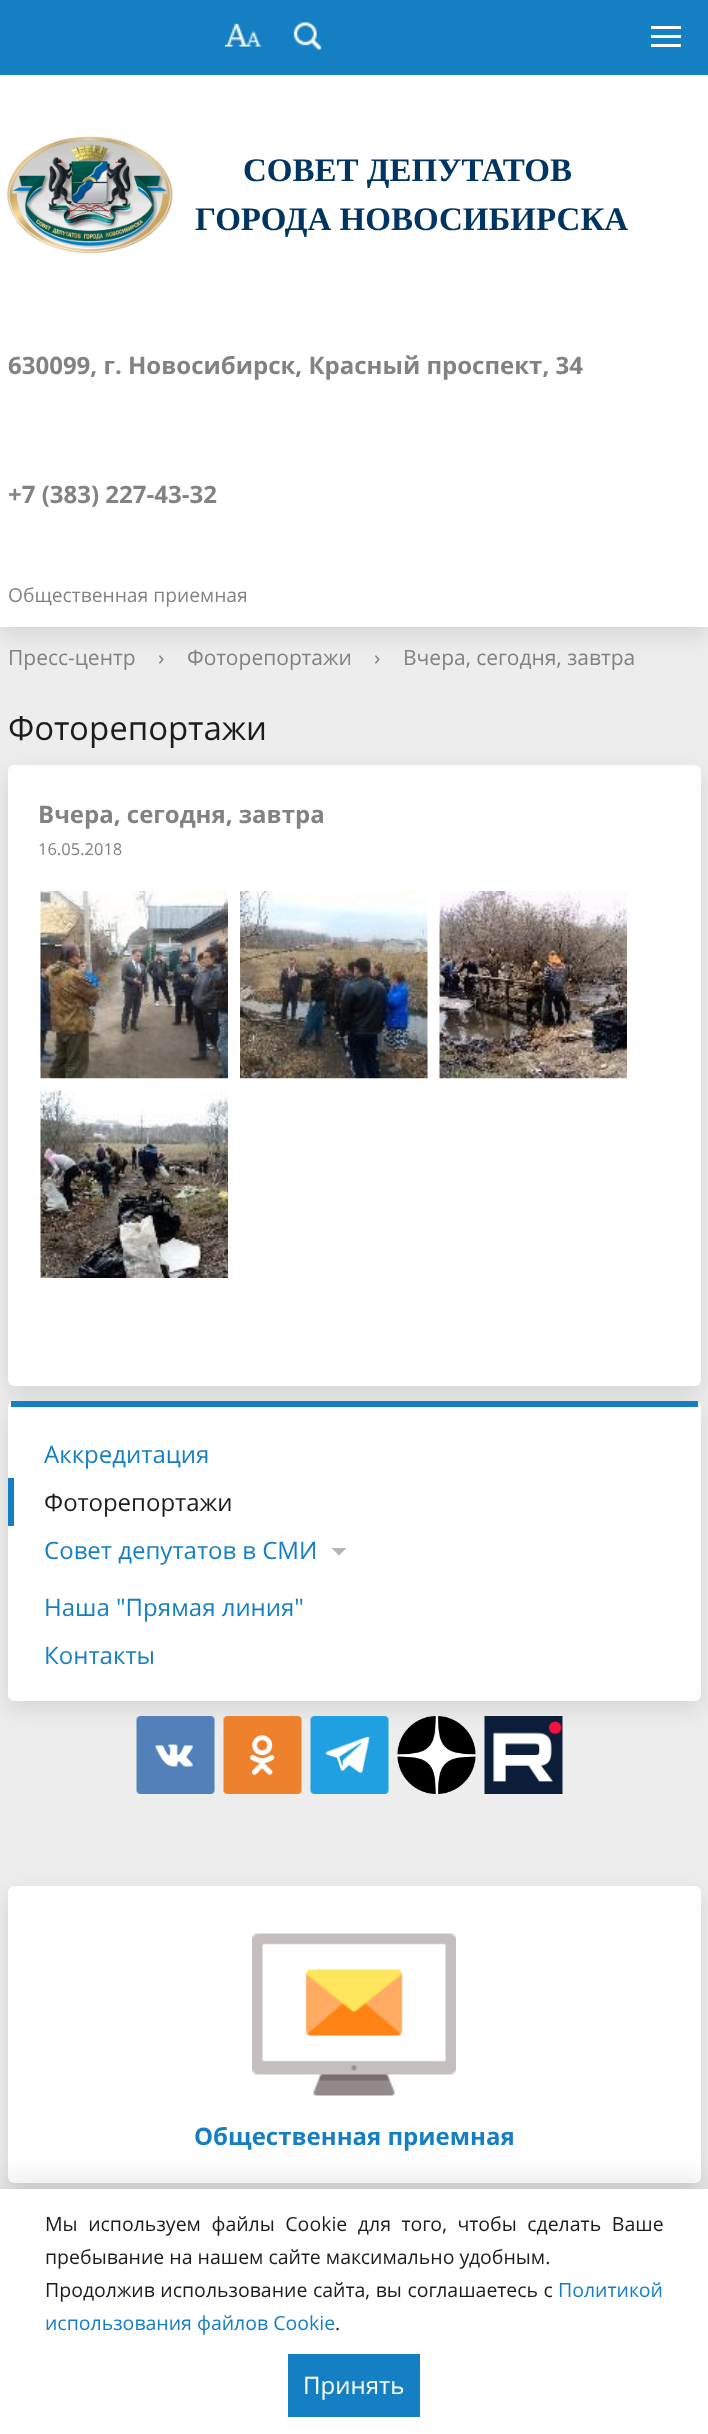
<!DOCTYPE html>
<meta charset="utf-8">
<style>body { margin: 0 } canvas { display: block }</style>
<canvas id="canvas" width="708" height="2434"></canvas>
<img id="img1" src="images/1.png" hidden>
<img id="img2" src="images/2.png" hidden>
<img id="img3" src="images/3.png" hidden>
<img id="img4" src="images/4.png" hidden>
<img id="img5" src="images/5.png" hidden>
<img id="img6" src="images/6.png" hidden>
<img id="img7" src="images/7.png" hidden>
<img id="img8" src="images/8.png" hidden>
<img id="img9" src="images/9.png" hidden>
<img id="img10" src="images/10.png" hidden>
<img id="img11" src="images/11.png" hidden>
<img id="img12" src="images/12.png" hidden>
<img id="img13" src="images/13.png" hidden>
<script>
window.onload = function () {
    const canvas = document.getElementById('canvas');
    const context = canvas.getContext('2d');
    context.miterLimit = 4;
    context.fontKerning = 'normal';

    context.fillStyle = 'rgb(237, 237, 237)';
    context.fillRect(0, 0, 708, 2434);
    context.fillStyle = 'rgba(0, 0, 0, 0.1)';
    context.filter = 'blur(11px)';
    context.beginPath();
    context.rect(0, 83, 708, 552);
    context.fill();
    context.filter = 'none';
    context.fillStyle = 'rgb(21, 127, 196)';
    context.fillRect(0, 0, 708, 75);
    context.fillStyle = 'rgb(255, 255, 255)';
    context.fillRect(651, 35, 30, 3);
    context.fillRect(651, 26, 30, 3);
    context.fillRect(651, 44, 30, 3);
    context.drawImage(document.getElementById('img1'), 225, 23, 37, 24);
    context.drawImage(document.getElementById('img2'), 293, 22, 29, 28);
    context.fillRect(0, 75, 708, 552);
    context.drawImage(document.getElementById('img3'), 7, 136, 166, 118);
    context.fillStyle = 'rgba(0, 0, 0, 0.1)';
    context.filter = 'blur(11px)';
    context.beginPath();
    context.roundRect(8, 773, 693, 621, 6);
    context.fill();
    context.filter = 'none';
    context.fillStyle = 'rgb(255, 255, 255)';
    context.beginPath();
    context.roundRect(8, 765, 693, 621, 6);
    context.fill();
    context.drawImage(document.getElementById('img4'), 40, 891, 188, 188);
    context.drawImage(document.getElementById('img5'), 240, 891, 188, 188);
    context.drawImage(document.getElementById('img6'), 439, 891, 188, 188);
    context.drawImage(document.getElementById('img7'), 40, 1090, 188, 188);
    context.fillStyle = 'rgba(0, 0, 0, 0.1)';
    context.filter = 'blur(11px)';
    context.beginPath();
    context.roundRect(8, 1409, 693, 300, 6);
    context.fill();
    context.filter = 'none';
    context.fillStyle = 'rgb(255, 255, 255)';
    context.beginPath();
    context.roundRect(8, 1401, 693, 300, 6);
    context.fill();
    context.fillStyle = 'rgb(21, 127, 196)';
    context.fillRect(11, 1401, 687, 6);
    context.fillRect(8, 1478, 6, 48);
    context.fillStyle = 'rgb(181, 181, 181)';
    context.beginPath();
    context.moveTo(331.5, 1548);
    context.lineTo(346.5, 1548);
    context.lineTo(339, 1555.5);
    context.closePath();
    context.fill();
    context.drawImage(document.getElementById('img8'), 136, 1716, 79, 78);
    context.drawImage(document.getElementById('img9'), 223, 1716, 79, 78);
    context.drawImage(document.getElementById('img10'), 310, 1716, 79, 78);
    context.drawImage(document.getElementById('img11'), 397, 1716, 79, 78);
    context.drawImage(document.getElementById('img12'), 484, 1716, 79, 78);
    context.fillStyle = 'rgba(0, 0, 0, 0.1)';
    context.filter = 'blur(11px)';
    context.beginPath();
    context.roundRect(8, 1893, 693, 297, 6);
    context.fill();
    context.filter = 'none';
    context.fillStyle = 'rgb(255, 255, 255)';
    context.beginPath();
    context.roundRect(8, 1886, 693, 297, 6);
    context.fill();
    context.drawImage(document.getElementById('img13'), 252, 1933, 204, 163);
    context.fillStyle = 'rgba(0, 0, 0, 0.1)';
    context.filter = 'blur(15px)';
    context.beginPath();
    context.rect(0, 2181, 708, 246);
    context.fill();
    context.filter = 'none';
    context.fillStyle = 'rgb(255, 255, 255)';
    context.fillRect(0, 2189, 708, 245);
    context.fillStyle = 'rgb(21, 127, 196)';
    context.fillRect(288, 2354, 132, 63);
    context.font = 'bold 33px Liberation Serif';
    context.fillStyle = 'rgb(0, 53, 98)';
    context.fillText('СОВЕТ ДЕПУТАТОВ', 243, 181);
    context.fillText('ГОРОДА НОВОСИБИРСКА', 195, 230);
    context.font = 'bold 24px Open Sans';
    context.fillStyle = 'rgb(130, 130, 130)';
    context.fillText('630099, г. Новосибирск, Красный проспект, 34', 8, 374);
    context.fillText('+7 (383) 227-43-32', 8, 503);
    context.font = '19.25px Open Sans';
    context.fillText('Общественная приемная', 8, 602);
    context.font = '21px Open Sans';
    context.fillText('Пресс-центр', 8, 665);
    context.fillText('›', 158, 665);
    context.fillText('Фоторепортажи', 187, 665);
    context.fillText('›', 374, 665);
    context.fillText('Вчера, сегодня, завтра', 403, 665);
    context.font = '33px Open Sans';
    context.fillStyle = 'rgb(28, 28, 28)';
    context.fillText('Фоторепортажи', 8, 740);
    context.font = 'bold 24px Open Sans';
    context.fillStyle = 'rgb(130, 130, 130)';
    context.fillText('Вчера, сегодня, завтра', 38, 823);
    context.font = '16.5px Open Sans';
    context.fillText('16.05.2018', 38, 855);
    context.font = '24px Open Sans';
    context.fillStyle = 'rgb(21, 127, 196)';
    context.fillText('Аккредитация', 44, 1463);
    context.fillStyle = 'rgb(28, 28, 28)';
    context.fillText('Фоторепортажи', 44, 1511);
    context.fillStyle = 'rgb(21, 127, 196)';
    context.fillText('Совет депутатов в СМИ', 44, 1559);
    context.fillText('Наша "Прямая линия"', 44, 1616);
    context.fillText('Контакты', 44, 1664);
    context.font = 'bold 24px Open Sans';
    context.fillText('Общественная приемная', 194, 2145);
    context.wordSpacing = '5.5px';
    context.font = '19.5px Open Sans';
    context.fillStyle = 'rgb(28, 28, 28)';
    context.fillText('Мы используем файлы Cookie для того, чтобы сделать Ваше', 45, 2231);
    context.wordSpacing = '0px';
    context.fillText('пребывание на нашем сайте максимально удобным.', 45, 2264);
    context.wordSpacing = '0.5px';
    context.fillText('Продолжив использование сайта, вы соглашаетесь с', 45, 2297);
    context.wordSpacing = '0px';
    context.fillStyle = 'rgb(21, 127, 196)';
    context.fillText('Политикой', 558, 2297);
    context.fillText('использования файлов Cookie', 45, 2330);
    context.fillStyle = 'rgb(28, 28, 28)';
    context.fillText('.', 335, 2330);
    context.font = '24px Open Sans';
    context.fillStyle = 'rgb(255, 255, 255)';
    context.fillText('Принять', 303, 2394);
};
</script>
